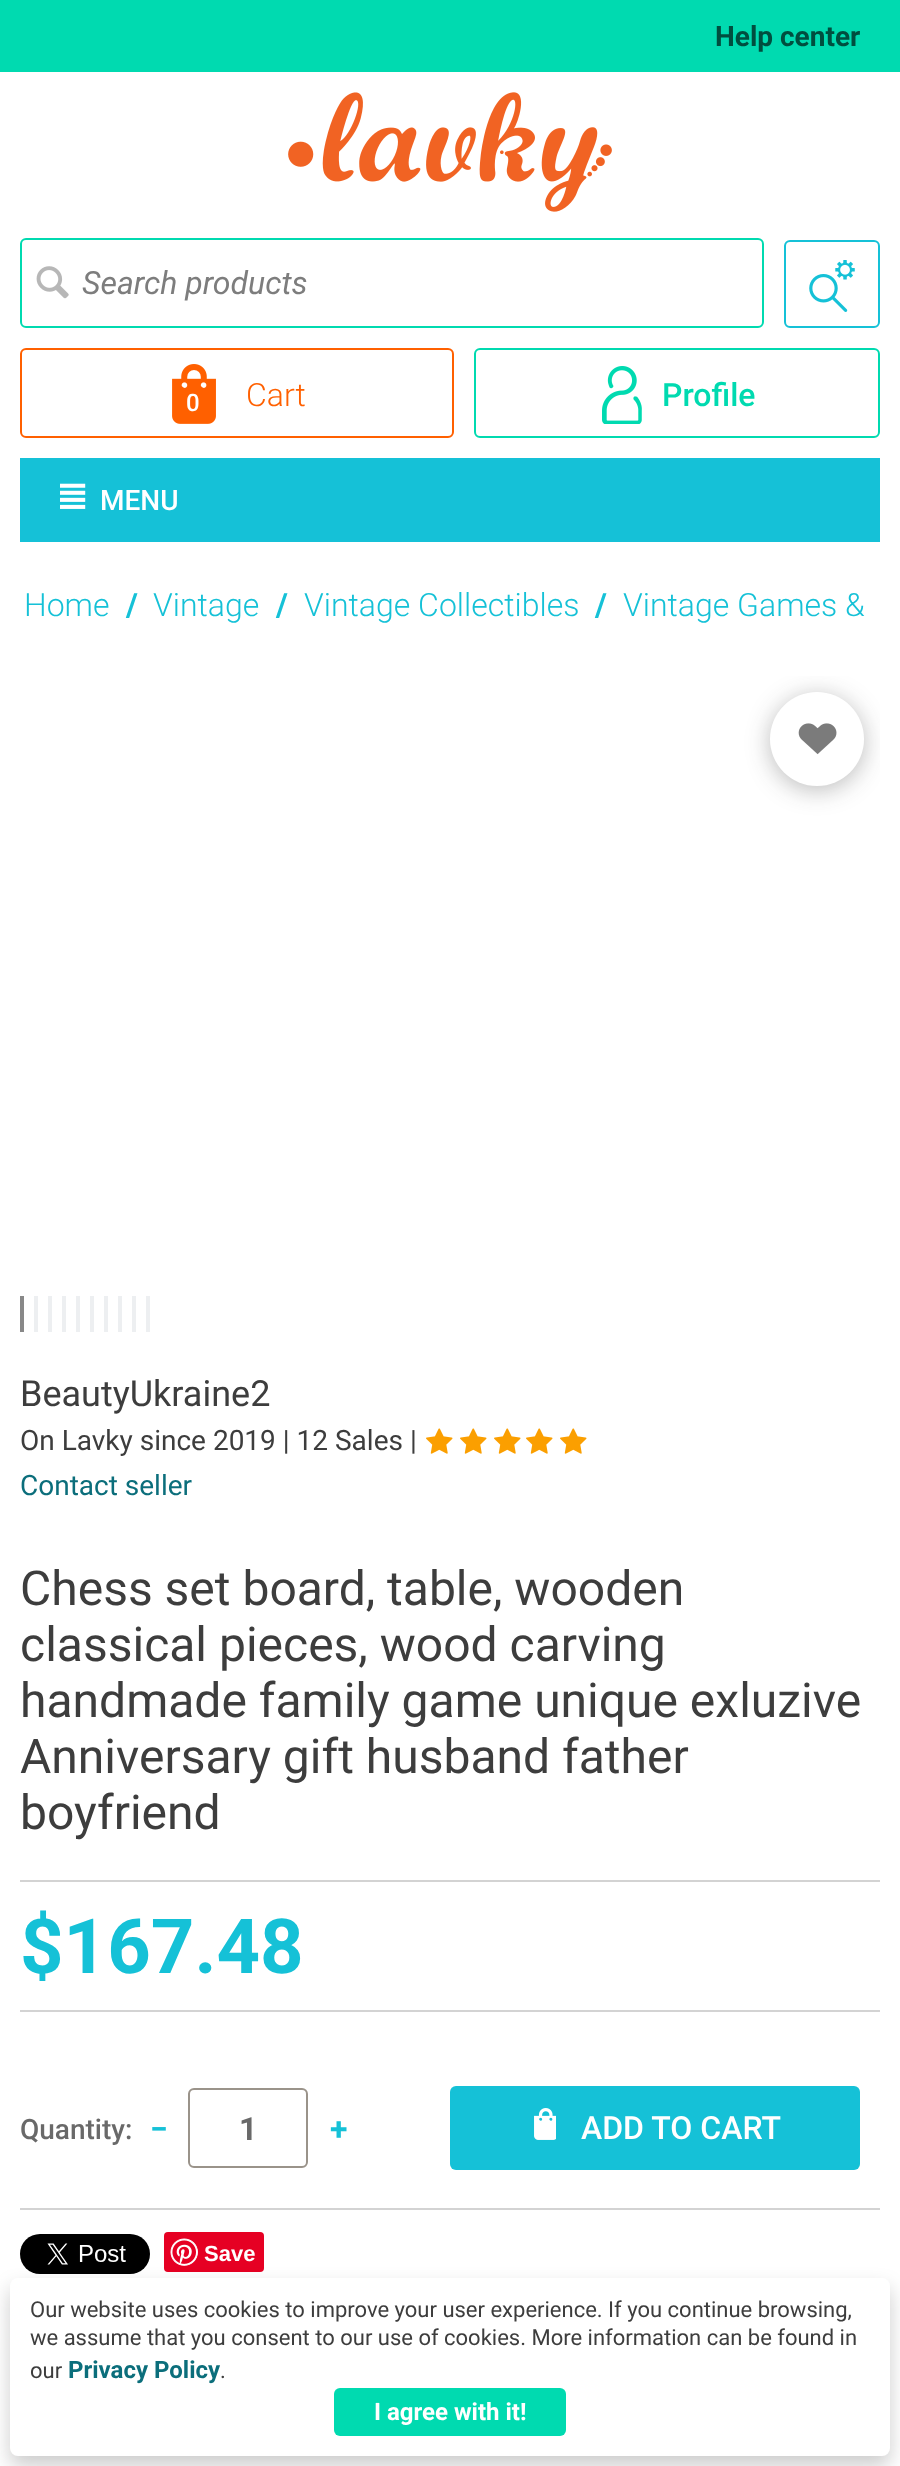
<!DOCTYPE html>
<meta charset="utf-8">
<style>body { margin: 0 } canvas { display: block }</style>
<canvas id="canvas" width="900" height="2466"></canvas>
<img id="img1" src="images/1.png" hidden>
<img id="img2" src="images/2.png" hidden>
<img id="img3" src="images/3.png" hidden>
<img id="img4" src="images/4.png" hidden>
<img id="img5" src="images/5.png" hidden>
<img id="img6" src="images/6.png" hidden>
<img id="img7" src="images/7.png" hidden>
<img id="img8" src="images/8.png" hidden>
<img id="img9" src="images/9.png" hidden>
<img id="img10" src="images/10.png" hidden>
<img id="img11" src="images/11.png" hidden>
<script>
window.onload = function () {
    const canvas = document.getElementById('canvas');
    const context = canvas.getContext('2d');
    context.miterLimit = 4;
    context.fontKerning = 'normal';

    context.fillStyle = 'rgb(255, 255, 255)';
    context.fillRect(0, 0, 900, 2466);
    context.fillStyle = 'rgb(0, 218, 176)';
    context.fillRect(0, 0, 900, 72);
    context.drawImage(document.getElementById('img1'), 288, 92, 324, 120);
    context.beginPath();
    context.roundRect(21, 239, 742, 88, 5);
    context.strokeStyle = 'rgb(0, 218, 176)';
    context.lineWidth = 2;
    context.stroke();
    context.drawImage(document.getElementById('img2'), 36, 266, 33, 33);
    context.beginPath();
    context.roundRect(785, 241, 94, 86, 5);
    context.strokeStyle = 'rgb(21, 193, 215)';
    context.stroke();
    context.drawImage(document.getElementById('img3'), 809, 260, 46, 52);
    context.beginPath();
    context.roundRect(21, 349, 432, 88, 5);
    context.strokeStyle = 'rgb(255, 96, 0)';
    context.stroke();
    context.drawImage(document.getElementById('img4'), 172, 364, 44, 60);
    context.beginPath();
    context.roundRect(475, 349, 404, 88, 5);
    context.strokeStyle = 'rgb(0, 218, 176)';
    context.stroke();
    context.drawImage(document.getElementById('img5'), 602, 366, 40, 58);
    context.fillStyle = 'rgb(21, 193, 215)';
    context.fillRect(20, 458, 860, 84);
    context.drawImage(document.getElementById('img6'), 60, 483, 26, 26);
    context.save();
    context.beginPath();
    context.rect(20, 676, 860, 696);
    context.clip();
    context.fillStyle = 'rgba(34, 34, 34, 0.3)';
    context.filter = 'blur(12px)';
    context.beginPath();
    context.roundRect(770, 696, 94, 94, 47);
    context.fill();
    context.filter = 'none';
    context.restore();
    context.fillStyle = 'rgb(255, 255, 255)';
    context.beginPath();
    context.arc(817, 739, 47, 0, 2 * Math.PI);
    context.fill();
    context.drawImage(document.getElementById('img7'), 798, 723, 39, 32);
    context.fillStyle = 'rgb(136, 136, 136)';
    context.fillRect(20, 1296, 4, 36);
    context.fillStyle = 'rgb(237, 239, 241)';
    context.fillRect(34, 1296, 4, 36);
    context.fillRect(48, 1296, 4, 36);
    context.fillRect(62, 1296, 4, 36);
    context.fillRect(76, 1296, 4, 36);
    context.fillRect(90, 1296, 4, 36);
    context.fillRect(104, 1296, 4, 36);
    context.fillRect(118, 1296, 4, 36);
    context.fillRect(132, 1296, 4, 36);
    context.fillRect(146, 1296, 4, 36);
    context.drawImage(document.getElementById('img8'), 426, 1428, 27, 26);
    context.drawImage(document.getElementById('img8'), 460, 1428, 27, 26);
    context.drawImage(document.getElementById('img8'), 494, 1428, 27, 26);
    context.drawImage(document.getElementById('img8'), 526, 1428, 27, 26);
    context.drawImage(document.getElementById('img8'), 560, 1428, 27, 26);
    context.fillStyle = 'rgb(211, 211, 211)';
    context.fillRect(20, 1880, 860, 2);
    context.fillRect(20, 2010, 860, 2);
    context.fillRect(20, 2208, 860, 2);
    context.beginPath();
    context.roundRect(189, 2089, 118, 78, 5);
    context.strokeStyle = 'rgb(154, 147, 138)';
    context.stroke();
    context.fillStyle = 'rgb(21, 193, 215)';
    context.beginPath();
    context.roundRect(450, 2086, 410, 84, 6);
    context.fill();
    context.drawImage(document.getElementById('img9'), 534, 2108, 22, 32);
    context.drawImage(document.getElementById('img10'), 20, 2234, 130, 40);
    context.fillStyle = 'rgb(230, 0, 35)';
    context.beginPath();
    context.roundRect(164, 2232, 100, 40, 4);
    context.fill();
    context.drawImage(document.getElementById('img11'), 170, 2238, 28, 28);
    context.fillStyle = 'rgba(0, 0, 0, 0.2)';
    context.filter = 'blur(10px)';
    context.beginPath();
    context.roundRect(10, 2288, 880, 178, 8);
    context.fill();
    context.filter = 'none';
    context.fillStyle = 'rgb(255, 255, 255)';
    context.beginPath();
    context.roundRect(10, 2278, 880, 178, 8);
    context.fill();
    context.fillStyle = 'rgb(0, 218, 176)';
    context.beginPath();
    context.roundRect(334, 2388, 232, 48, 6);
    context.fill();
    context.font = 'bold 28px Roboto';
    context.fillStyle = 'rgb(0, 78, 63)';
    context.fillText('Help center', 715, 46);
    context.font = 'italic 32px Roboto';
    context.fillStyle = 'rgb(125, 125, 125)';
    context.fillText('Search products', 82, 294);
    context.font = '500 24px Roboto';
    context.fillStyle = 'rgb(255, 255, 255)';
    context.fillText('0', 186, 411);
    context.font = '300 32px Roboto';
    context.fillStyle = 'rgb(255, 96, 0)';
    context.fillText('Cart', 246, 406);
    context.font = '500 32px Roboto';
    context.fillStyle = 'rgb(0, 218, 176)';
    context.fillText('Profile', 662, 406);
    context.font = '500 28px Roboto';
    context.fillStyle = 'rgb(255, 255, 255)';
    context.fillText('MENU', 100, 510);
    context.font = '300 32px Roboto';
    context.fillStyle = 'rgb(21, 193, 215)';
    context.fillText('Home', 24, 616);
    context.font = 'bold 32px Roboto';
    context.fillText('/', 126, 616);
    context.font = '300 32px Roboto';
    context.fillText('Vintage', 153, 616);
    context.font = 'bold 32px Roboto';
    context.fillText('/', 276, 616);
    context.font = '300 32px Roboto';
    context.fillText('Vintage Collectibles', 304, 616);
    context.font = 'bold 32px Roboto';
    context.fillText('/', 595, 616);
    context.font = '300 32px Roboto';
    context.fillText('Vintage Games &', 623, 616);
    context.font = '36px Roboto';
    context.fillStyle = 'rgb(61, 61, 61)';
    context.fillText('BeautyUkraine2', 20, 1406);
    context.font = '28px Roboto';
    context.fillText('On Lavky since 2019 | 12 Sales |', 20, 1450);
    context.fillStyle = 'rgb(11, 110, 123)';
    context.fillText('Contact seller', 20, 1495);
    context.font = '48px Roboto';
    context.fillStyle = 'rgb(61, 61, 61)';
    context.fillText('Chess set board, table, wooden', 20, 1605);
    context.fillText('classical pieces, wood carving', 20, 1661);
    context.fillText('handmade family game unique exluzive', 20, 1717);
    context.fillText('Anniversary gift husband father', 20, 1773);
    context.fillText('boyfriend', 20, 1829);
    context.font = 'bold 76px Roboto';
    context.fillStyle = 'rgb(21, 193, 215)';
    context.fillText('$167.48', 20, 1973);
    context.font = '500 28px Roboto';
    context.fillStyle = 'rgb(105, 105, 105)';
    context.fillText('Quantity:', 20, 2139);
    context.font = 'bold 32px Roboto';
    context.fillStyle = 'rgb(21, 193, 215)';
    context.fillText('−', 150, 2140);
    context.fillStyle = 'rgb(105, 105, 105)';
    context.fillText('1', 239, 2140);
    context.fillStyle = 'rgb(21, 193, 215)';
    context.fillText('+', 330, 2140);
    context.font = '500 32px Roboto';
    context.fillStyle = 'rgb(255, 255, 255)';
    context.fillText('ADD TO CART', 581, 2139);
    context.font = 'bold 22px Liberation Sans';
    context.fillText('Save', 204, 2261);
    context.font = '22px Roboto';
    context.fillStyle = 'rgb(61, 61, 61)';
    context.fillText('Our website uses cookies to improve your user experience. If you continue browsing,', 30, 2317);
    context.fillText('we assume that you consent to our use of cookies. More information can be found in', 30, 2345);
    context.fillText('our', 30, 2378);
    context.font = 'bold 24px Roboto';
    context.fillStyle = 'rgb(11, 110, 123)';
    context.fillText('Privacy Policy', 68, 2378);
    context.font = '22px Roboto';
    context.fillStyle = 'rgb(61, 61, 61)';
    context.fillText('.', 220, 2378);
    context.font = 'bold 24px Roboto';
    context.fillStyle = 'rgb(255, 255, 255)';
    context.fillText('I agree with it!', 374, 2420);
};
</script>
